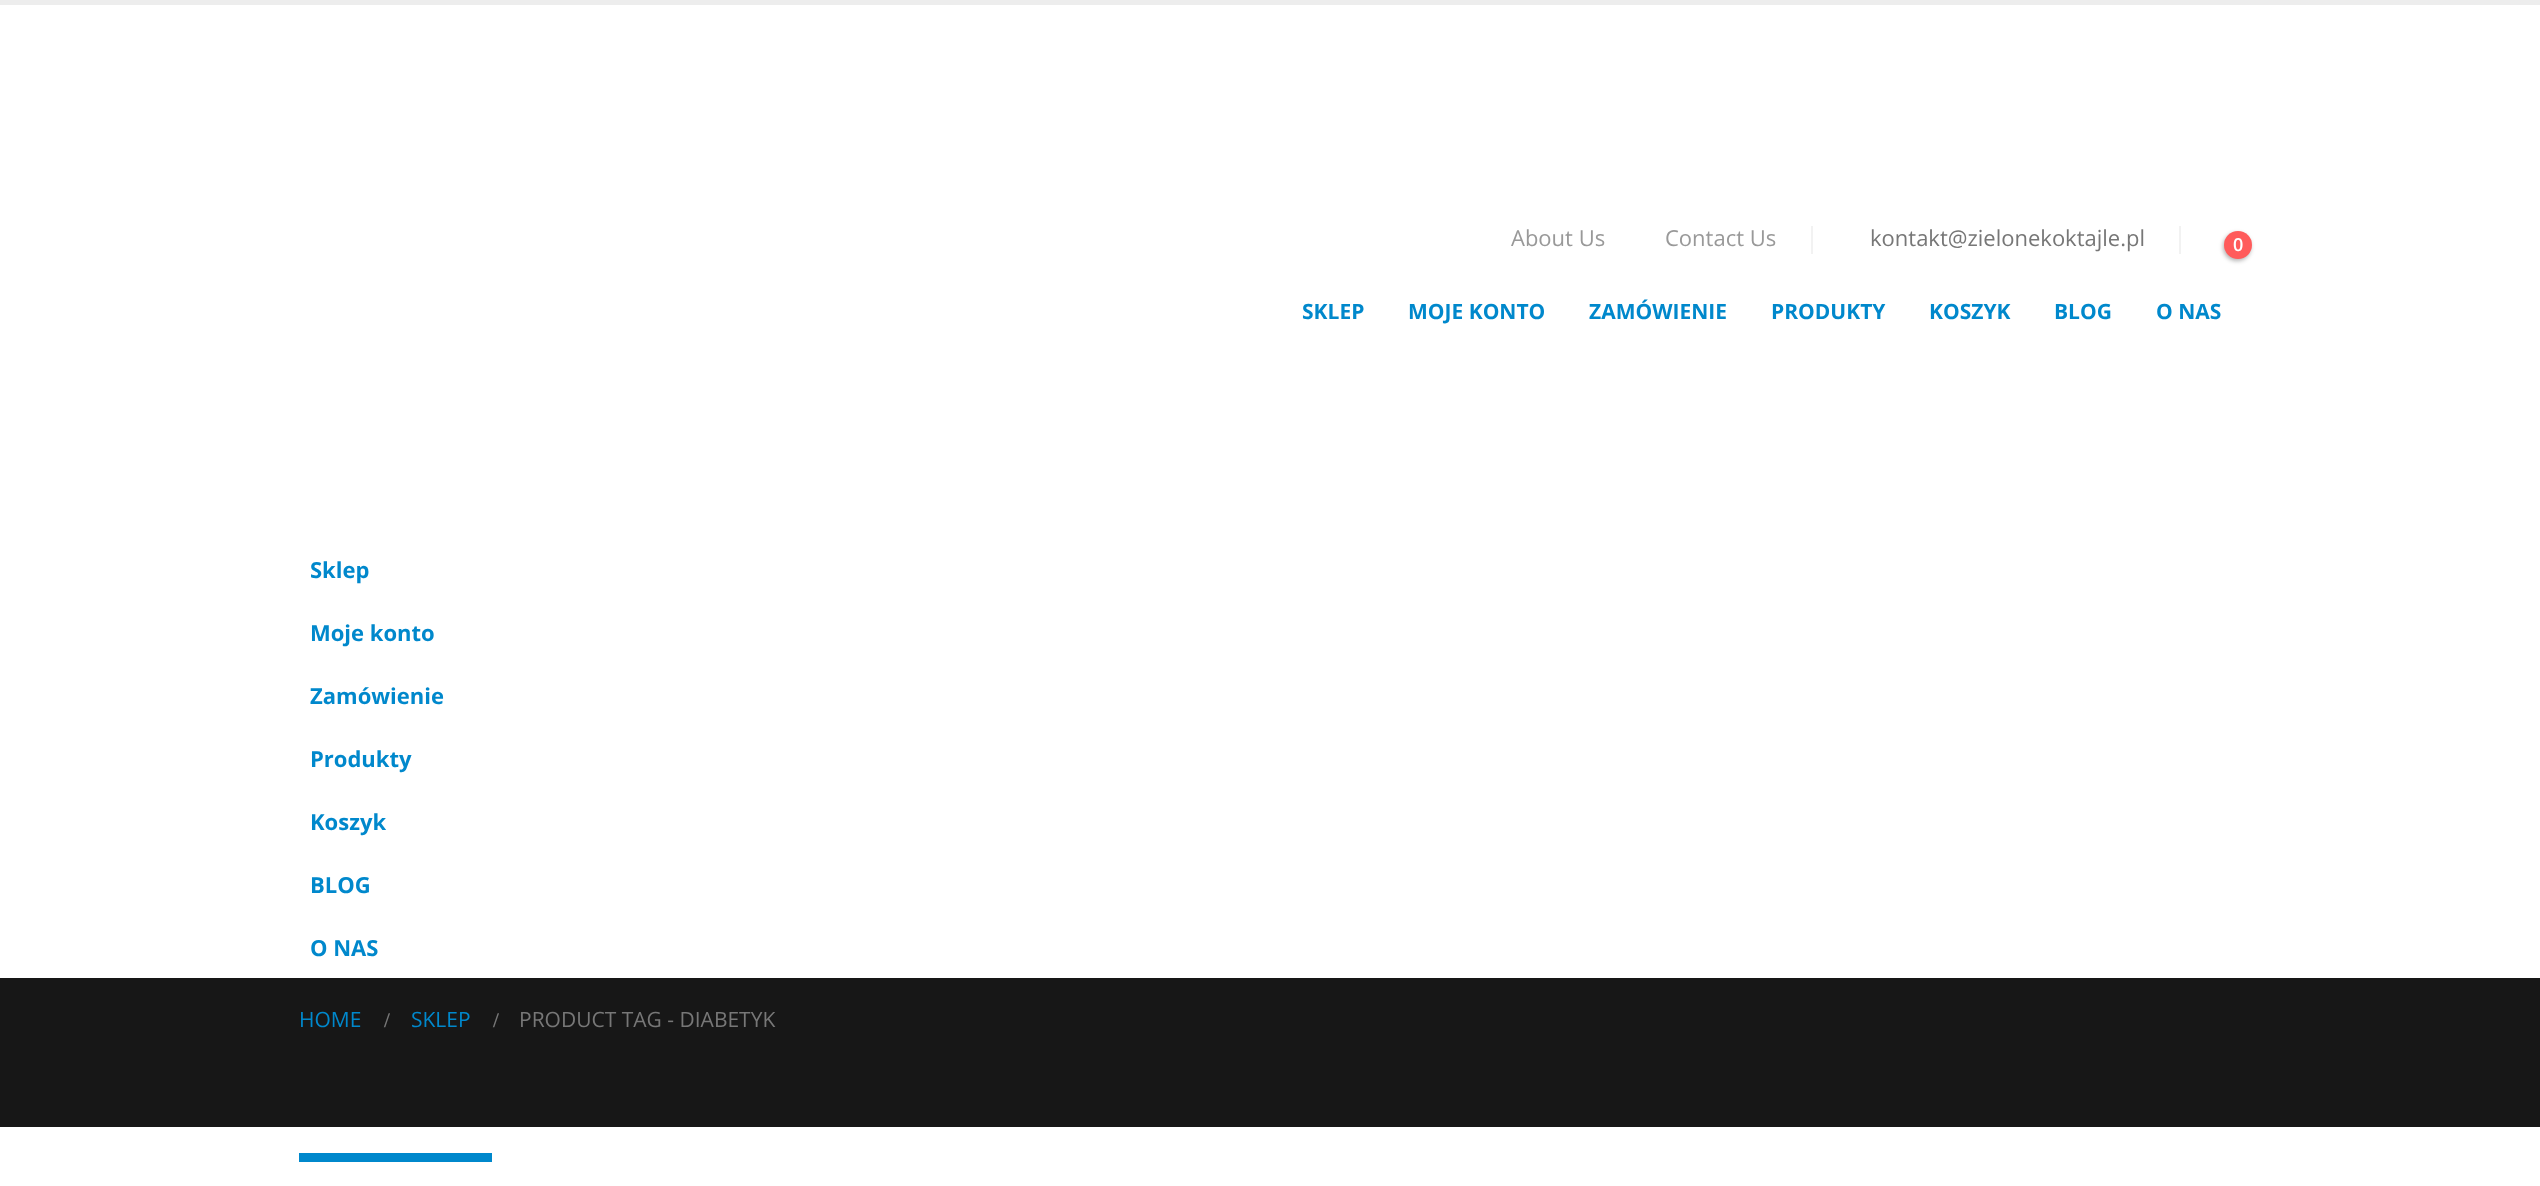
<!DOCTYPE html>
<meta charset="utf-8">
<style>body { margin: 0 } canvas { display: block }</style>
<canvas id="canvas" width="2540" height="1186"></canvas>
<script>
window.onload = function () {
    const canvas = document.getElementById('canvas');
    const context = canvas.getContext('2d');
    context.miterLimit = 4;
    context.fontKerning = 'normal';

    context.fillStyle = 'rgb(255, 255, 255)';
    context.fillRect(0, 0, 2540, 1186);
    context.fillStyle = 'rgb(237, 237, 237)';
    context.fillRect(0, 0, 2540, 5);
    context.fillStyle = 'rgb(242, 242, 242)';
    context.fillRect(1811, 226, 2, 28);
    context.fillRect(2179, 226, 2, 28);
    context.fillStyle = 'rgba(0, 0, 0, 0.3)';
    context.filter = 'blur(2px)';
    context.beginPath();
    context.roundRect(2223, 233, 28, 28, 14);
    context.fill();
    context.filter = 'none';
    context.fillStyle = 'rgb(255, 91, 91)';
    context.beginPath();
    context.arc(2238, 245, 14, 0, 2 * Math.PI);
    context.fill();
    context.fillStyle = 'rgb(23, 23, 23)';
    context.fillRect(0, 978, 2540, 149);
    context.fillStyle = 'rgb(0, 136, 204)';
    context.fillRect(299, 1153, 193, 9);
    context.font = '22px Open Sans';
    context.fillStyle = 'rgb(153, 153, 153)';
    context.fillText('About Us', 1511, 246);
    context.fillText('Contact Us', 1665, 246);
    context.fillStyle = 'rgb(119, 119, 119)';
    context.fillText('kontakt@zielonekoktajle.pl', 1870, 246);
    context.font = '600 18px Open Sans';
    context.fillStyle = 'rgb(255, 255, 255)';
    context.fillText('0', 2233, 251);
    context.font = 'bold 21px Open Sans';
    context.fillStyle = 'rgb(0, 136, 204)';
    context.fillText('SKLEP', 1302, 319);
    context.fillText('MOJE KONTO', 1408, 319);
    context.fillText('ZAMÓWIENIE', 1589, 319);
    context.fillText('PRODUKTY', 1771, 319);
    context.fillText('KOSZYK', 1929, 319);
    context.fillText('BLOG', 2054, 319);
    context.fillText('O NAS', 2156, 319);
    context.font = 'bold 22px Open Sans';
    context.fillText('Sklep', 310, 578);
    context.fillText('Moje konto', 310, 641);
    context.fillText('Zamówienie', 310, 704);
    context.fillText('Produkty', 310, 767);
    context.fillText('Koszyk', 310, 830);
    context.fillText('BLOG', 310, 893);
    context.fillText('O NAS', 310, 956);
    context.font = '21px Open Sans';
    context.fillText('HOME', 299, 1027);
    context.font = 'bold 21px Liberation Serif';
    context.fillStyle = 'rgb(119, 119, 119)';
    context.fillText('/', 384, 1027);
    context.font = '21px Open Sans';
    context.fillStyle = 'rgb(0, 136, 204)';
    context.fillText('SKLEP', 411, 1027);
    context.font = 'bold 21px Liberation Serif';
    context.fillStyle = 'rgb(119, 119, 119)';
    context.fillText('/', 493, 1027);
    context.font = '21px Open Sans';
    context.fillText('PRODUCT TAG - DIABETYK', 519, 1027);
};
</script>
